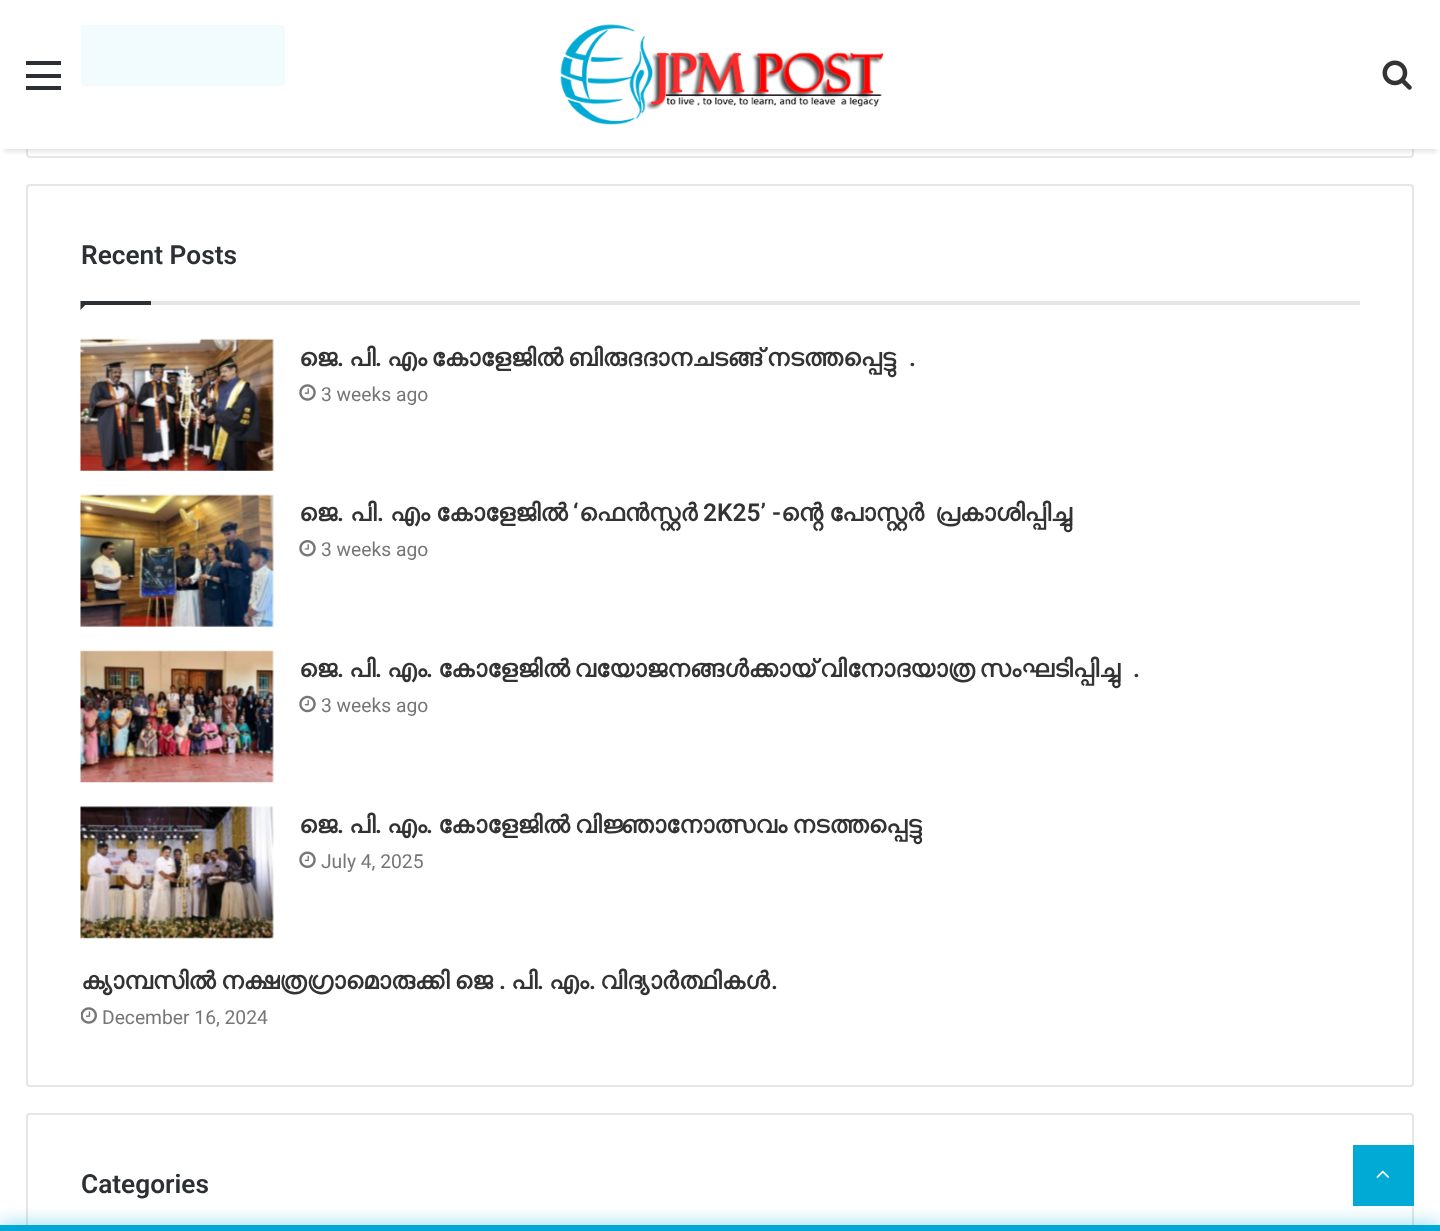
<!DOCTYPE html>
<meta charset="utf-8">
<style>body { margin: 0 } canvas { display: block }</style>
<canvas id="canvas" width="1440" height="1231"></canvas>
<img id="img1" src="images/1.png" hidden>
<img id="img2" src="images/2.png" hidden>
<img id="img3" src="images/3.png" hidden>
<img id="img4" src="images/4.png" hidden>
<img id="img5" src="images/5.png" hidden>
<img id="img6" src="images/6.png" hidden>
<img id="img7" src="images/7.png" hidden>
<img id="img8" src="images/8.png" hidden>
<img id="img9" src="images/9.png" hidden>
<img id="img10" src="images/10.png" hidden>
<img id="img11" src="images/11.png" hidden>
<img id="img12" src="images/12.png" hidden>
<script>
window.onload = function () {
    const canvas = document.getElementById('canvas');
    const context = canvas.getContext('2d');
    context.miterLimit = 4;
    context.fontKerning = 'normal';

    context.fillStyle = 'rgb(255, 255, 255)';
    context.fillRect(0, 0, 1440, 1231);
    context.beginPath();
    context.roundRect(27, -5, 1386, 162, 3);
    context.strokeStyle = 'rgb(230, 230, 230)';
    context.lineWidth = 2;
    context.stroke();
    context.fillStyle = 'rgb(0, 170, 212)';
    context.beginPath();
    context.roundRect(81, 25, 204, 61, 4);
    context.fill();
    context.save();
    context.beginPath();
    context.moveTo(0, 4);
    context.lineTo(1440, 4);
    context.lineTo(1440, 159);
    context.lineTo(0, 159);
    context.closePath();
    context.moveTo(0, 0);
    context.lineTo(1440, 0);
    context.lineTo(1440, 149);
    context.lineTo(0, 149);
    context.closePath();
    context.clip('evenodd');
    context.fillStyle = 'rgba(0, 0, 0, 0.1)';
    context.filter = 'blur(2px)';
    context.beginPath();
    context.rect(4, 11, 1433, 141);
    context.fill();
    context.filter = 'none';
    context.restore();
    context.fillStyle = 'rgba(255, 255, 255, 0.95)';
    context.fillRect(4, 0, 1433, 149);
    context.fillStyle = 'rgb(44, 47, 52)';
    context.fillRect(26, 74, 35, 4);
    context.fillRect(26, 61, 35, 4);
    context.fillRect(26, 86, 35, 4);
    context.drawImage(document.getElementById('img1'), 560, 24, 324, 101);
    context.drawImage(document.getElementById('img2'), 1382, 60, 30, 30);
    context.beginPath();
    context.roundRect(27, 185, 1386, 901, 3);
    context.stroke();
    context.fillStyle = 'rgb(230, 230, 230)';
    context.fillRect(151, 301, 1209, 4);
    context.fillStyle = 'rgb(44, 47, 52)';
    context.beginPath();
    context.moveTo(80.5, 301);
    context.lineTo(89, 301);
    context.lineTo(80.5, 310);
    context.closePath();
    context.fill();
    context.fillRect(81, 301, 70, 4);
    context.drawImage(document.getElementById('img3'), 80, 338, 194, 133);
    context.drawImage(document.getElementById('img4'), 299, 384, 17, 17);
    context.drawImage(document.getElementById('img5'), 80, 494, 194, 133);
    context.drawImage(document.getElementById('img6'), 299, 540, 17, 17);
    context.drawImage(document.getElementById('img7'), 80, 650, 194, 133);
    context.drawImage(document.getElementById('img8'), 299, 695, 17, 18);
    context.drawImage(document.getElementById('img9'), 80, 806, 194, 133);
    context.drawImage(document.getElementById('img10'), 299, 851, 17, 17);
    context.drawImage(document.getElementById('img11'), 81, 1007, 16, 17);
    context.beginPath();
    context.roundRect(27, 1114, 1386, 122, 3);
    context.stroke();
    context.fillStyle = 'rgb(0, 170, 212)';
    context.fillRect(1353, 1145, 61, 61);
    context.drawImage(document.getElementById('img12'), 1376, 1170, 14, 8);
    context.fillStyle = 'rgba(0, 170, 212, 0.7)';
    context.filter = 'blur(9px)';
    context.beginPath();
    context.rect(0, 1225, 1440, 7);
    context.fill();
    context.filter = 'none';
    context.fillStyle = 'rgb(0, 170, 212)';
    context.fillRect(0, 1225, 1440, 6);
    context.font = '600 26.25px Roboto';
    context.fillStyle = 'rgb(44, 47, 52)';
    context.fillText('Recent Posts', 81, 264);
    context.font = 'bold 24.5px FreeSans';
    context.fillStyle = 'rgb(51, 51, 51)';
    context.fillText('ജെ', 299, 366);
    context.font = '600 24.5px Roboto';
    context.fillText('.', 337, 366);
    context.font = 'bold 24.5px FreeSans';
    context.fillText('പി', 349, 366);
    context.font = '600 24.5px Roboto';
    context.fillText('.', 375, 366);
    context.wordSpacing = '-1.5px';
    context.font = 'bold 24.5px FreeSans';
    context.fillText('എം കോളേജിൽ ബിരുദദാനചടങ്ങ് നടത്തപ്പെട്ടു', 387, 366);
    context.wordSpacing = '0px';
    context.font = '600 24.5px Roboto';
    context.fillText('.', 909, 366);
    context.font = '19.25px Roboto';
    context.fillStyle = 'rgb(118, 118, 118)';
    context.fillText('3 weeks ago', 321, 401);
    context.font = 'bold 24.5px FreeSans';
    context.fillStyle = 'rgb(51, 51, 51)';
    context.fillText('ജെ', 299, 521);
    context.font = '600 24.5px Roboto';
    context.fillText('.', 337, 521);
    context.font = 'bold 24.5px FreeSans';
    context.fillText('പി', 350, 521);
    context.font = '600 24.5px Roboto';
    context.fillText('.', 377, 521);
    context.font = 'bold 24.5px FreeSans';
    context.fillText('എം കോളേജിൽ', 390, 521);
    context.font = '600 24.5px Roboto';
    context.fillText('‘', 573, 521);
    context.font = 'bold 24.5px FreeSans';
    context.fillText('ഫെൻസ്റ്റർ', 579, 521);
    context.font = '600 24.5px Roboto';
    context.fillText('2K25’ -', 703, 521);
    context.font = 'bold 24.5px FreeSans';
    context.fillText('ൻ്റെ പോസ്റ്റർ', 781, 521);
    context.fillText('പ്രകാശിപ്പിച്ചു', 935, 521);
    context.font = '600 24.5px Roboto';
    context.fillText('.', 1067, 521);
    context.font = '19.25px Roboto';
    context.fillStyle = 'rgb(118, 118, 118)';
    context.fillText('3 weeks ago', 321, 556);
    context.font = 'bold 24.5px FreeSans';
    context.fillStyle = 'rgb(51, 51, 51)';
    context.fillText('ജെ', 299, 677);
    context.font = '600 24.5px Roboto';
    context.fillText('.', 337, 677);
    context.font = 'bold 24.5px FreeSans';
    context.fillText('പി', 349, 677);
    context.font = '600 24.5px Roboto';
    context.fillText('.', 375, 677);
    context.font = 'bold 24.5px FreeSans';
    context.fillText('എം', 387, 677);
    context.font = '600 24.5px Roboto';
    context.fillText('.', 426, 677);
    context.wordSpacing = '-1.5px';
    context.font = 'bold 24.5px FreeSans';
    context.fillText('കോളേജിൽ വയോജനങ്ങൾക്കായ് വിനോദയാത്ര സംഘടിപ്പിച്ചു', 438, 677);
    context.wordSpacing = '0px';
    context.font = '600 24.5px Roboto';
    context.fillText('.', 1133, 677);
    context.font = '19.25px Roboto';
    context.fillStyle = 'rgb(118, 118, 118)';
    context.fillText('3 weeks ago', 321, 712);
    context.font = 'bold 24.5px FreeSans';
    context.fillStyle = 'rgb(51, 51, 51)';
    context.fillText('ജെ', 299, 833);
    context.font = '600 24.5px Roboto';
    context.fillText('.', 337, 833);
    context.font = 'bold 24.5px FreeSans';
    context.fillText('പി', 349, 833);
    context.font = '600 24.5px Roboto';
    context.fillText('.', 375, 833);
    context.font = 'bold 24.5px FreeSans';
    context.fillText('എം', 387, 833);
    context.font = '600 24.5px Roboto';
    context.fillText('.', 426, 833);
    context.wordSpacing = '-1px';
    context.font = 'bold 24.5px FreeSans';
    context.fillText('കോളേജിൽ വിജ്ഞാനോത്സവം നടത്തപ്പെട്ടു', 438, 833);
    context.wordSpacing = '0px';
    context.font = '19.25px Roboto';
    context.fillStyle = 'rgb(118, 118, 118)';
    context.fillText('July 4, 2025', 321, 868);
    context.wordSpacing = '-1px';
    context.font = 'bold 24.5px FreeSans';
    context.fillStyle = 'rgb(51, 51, 51)';
    context.fillText('ക്യാമ്പസിൽ നക്ഷത്രഗ്രാമൊരുക്കി ജെ', 81, 989);
    context.wordSpacing = '0px';
    context.font = '600 24.5px Roboto';
    context.fillText('.', 499, 989);
    context.font = 'bold 24.5px FreeSans';
    context.fillText('പി', 511, 989);
    context.font = '600 24.5px Roboto';
    context.fillText('.', 537, 989);
    context.font = 'bold 24.5px FreeSans';
    context.fillText('എം', 549, 989);
    context.font = '600 24.5px Roboto';
    context.fillText('.', 589, 989);
    context.font = 'bold 24.5px FreeSans';
    context.fillText('വിദ്യാർത്ഥികൾ', 600, 989);
    context.font = '600 24.5px Roboto';
    context.fillText('.', 771, 989);
    context.font = '19.25px Roboto';
    context.fillStyle = 'rgb(118, 118, 118)';
    context.fillText('December 16, 2024', 102, 1024);
    context.font = '600 26.25px Roboto';
    context.fillStyle = 'rgb(44, 47, 52)';
    context.fillText('Categories', 81, 1193);
};
</script>
